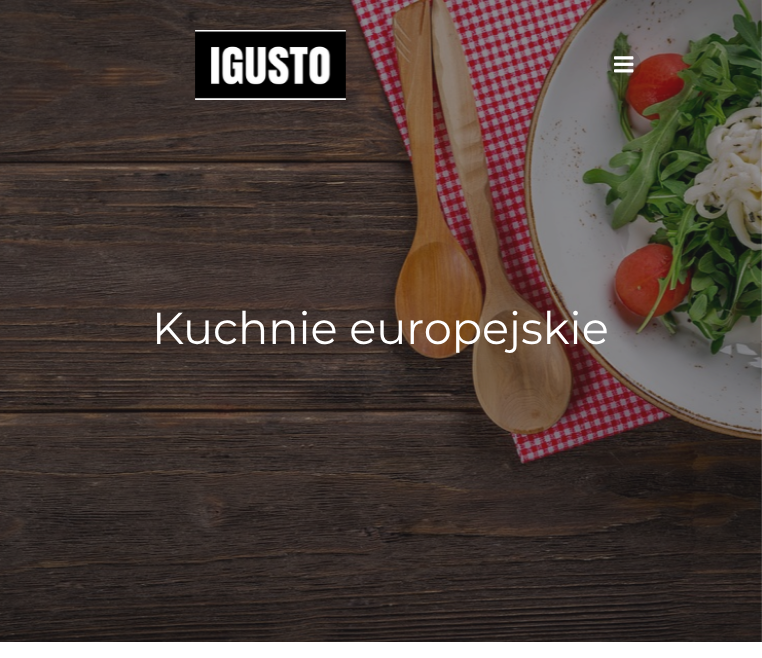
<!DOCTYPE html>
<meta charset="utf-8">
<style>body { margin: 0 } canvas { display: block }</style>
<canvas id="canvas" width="762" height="658"></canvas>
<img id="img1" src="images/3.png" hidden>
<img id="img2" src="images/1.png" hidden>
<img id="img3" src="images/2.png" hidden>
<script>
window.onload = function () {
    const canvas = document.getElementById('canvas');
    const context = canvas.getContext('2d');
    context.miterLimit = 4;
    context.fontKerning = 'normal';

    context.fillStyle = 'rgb(255, 255, 255)';
    context.fillRect(0, 0, 762, 658);
    context.drawImage(document.getElementById('img1'), 0, 0, 762, 642);
    context.drawImage(document.getElementById('img2'), 195, 30, 151, 70);
    context.fillStyle = 'rgba(0, 0, 0, 0.1)';
    context.beginPath();
    context.arc(624, 65, 17, 0, 2 * Math.PI);
    context.fill();
    context.drawImage(document.getElementById('img3'), 614, 56, 20, 17);
    context.font = '44.75px Montserrat';
    context.fillStyle = 'rgb(255, 255, 255)';
    context.fillText('Kuchnie europejskie', 152, 344);
};
</script>
